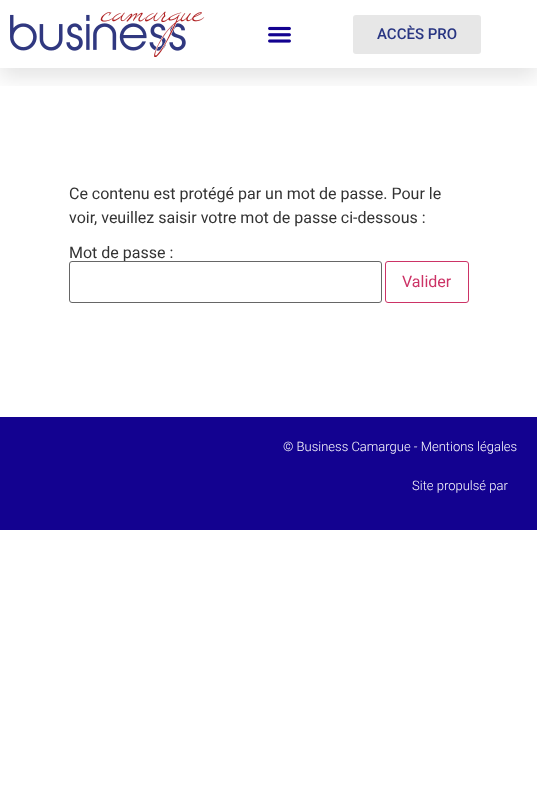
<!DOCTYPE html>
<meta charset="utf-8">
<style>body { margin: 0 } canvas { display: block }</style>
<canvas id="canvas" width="537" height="808"></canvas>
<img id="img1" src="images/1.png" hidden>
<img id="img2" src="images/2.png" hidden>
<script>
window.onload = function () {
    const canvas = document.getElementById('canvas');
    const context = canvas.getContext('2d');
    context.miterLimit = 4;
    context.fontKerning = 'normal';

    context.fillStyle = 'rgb(255, 255, 255)';
    context.fillRect(0, 0, 537, 808);
    context.save();
    context.beginPath();
    context.rect(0, 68, 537, 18);
    context.clip();
    context.fillStyle = 'rgba(0, 0, 0, 0.1)';
    context.filter = 'blur(10px)';
    context.beginPath();
    context.rect(0, 10, 537, 68);
    context.fill();
    context.filter = 'none';
    context.restore();
    context.drawImage(document.getElementById('img1'), 10, 11, 195, 46);
    context.drawImage(document.getElementById('img2'), 268, 26, 23, 17);
    context.fillStyle = 'rgb(231, 231, 231)';
    context.beginPath();
    context.roundRect(353, 15, 128, 39, 3);
    context.fill();
    context.beginPath();
    context.roundRect(385.5, 261.5, 83, 41, 2.5);
    context.strokeStyle = 'rgb(204, 51, 102)';
    context.stroke();
    context.fillStyle = 'rgb(19, 2, 144)';
    context.fillRect(0, 417, 537, 113);
    context.font = '500 15px Roboto';
    context.fillStyle = 'rgb(40, 53, 130)';
    context.fillText('ACCÈS PRO', 377, 39);
    context.font = '16px Roboto';
    context.fillStyle = 'rgb(51, 51, 51)';
    context.fillText('Ce contenu est protégé par un mot de passe. Pour le', 69, 199);
    context.fillText('voir, veuillez saisir votre mot de passe ci-dessous :', 69, 223);
    context.fillText('Mot de passe :', 69, 258);
    context.fillStyle = 'rgb(255, 255, 255)';
    context.beginPath();
    context.roundRect(69.5, 261.5, 312, 41, 2.5);
    context.fill();
    context.strokeStyle = 'rgb(102, 102, 102)';
    context.stroke();
    context.fillStyle = 'rgb(204, 51, 102)';
    context.fillText('Valider', 402, 287);
    context.font = '300 13px Roboto';
    context.fillStyle = 'rgb(255, 255, 255)';
    context.fillText('© Business Camargue - Mentions légales', 283, 451);
    context.fillText('Site propulsé par', 412, 490);
};
</script>
